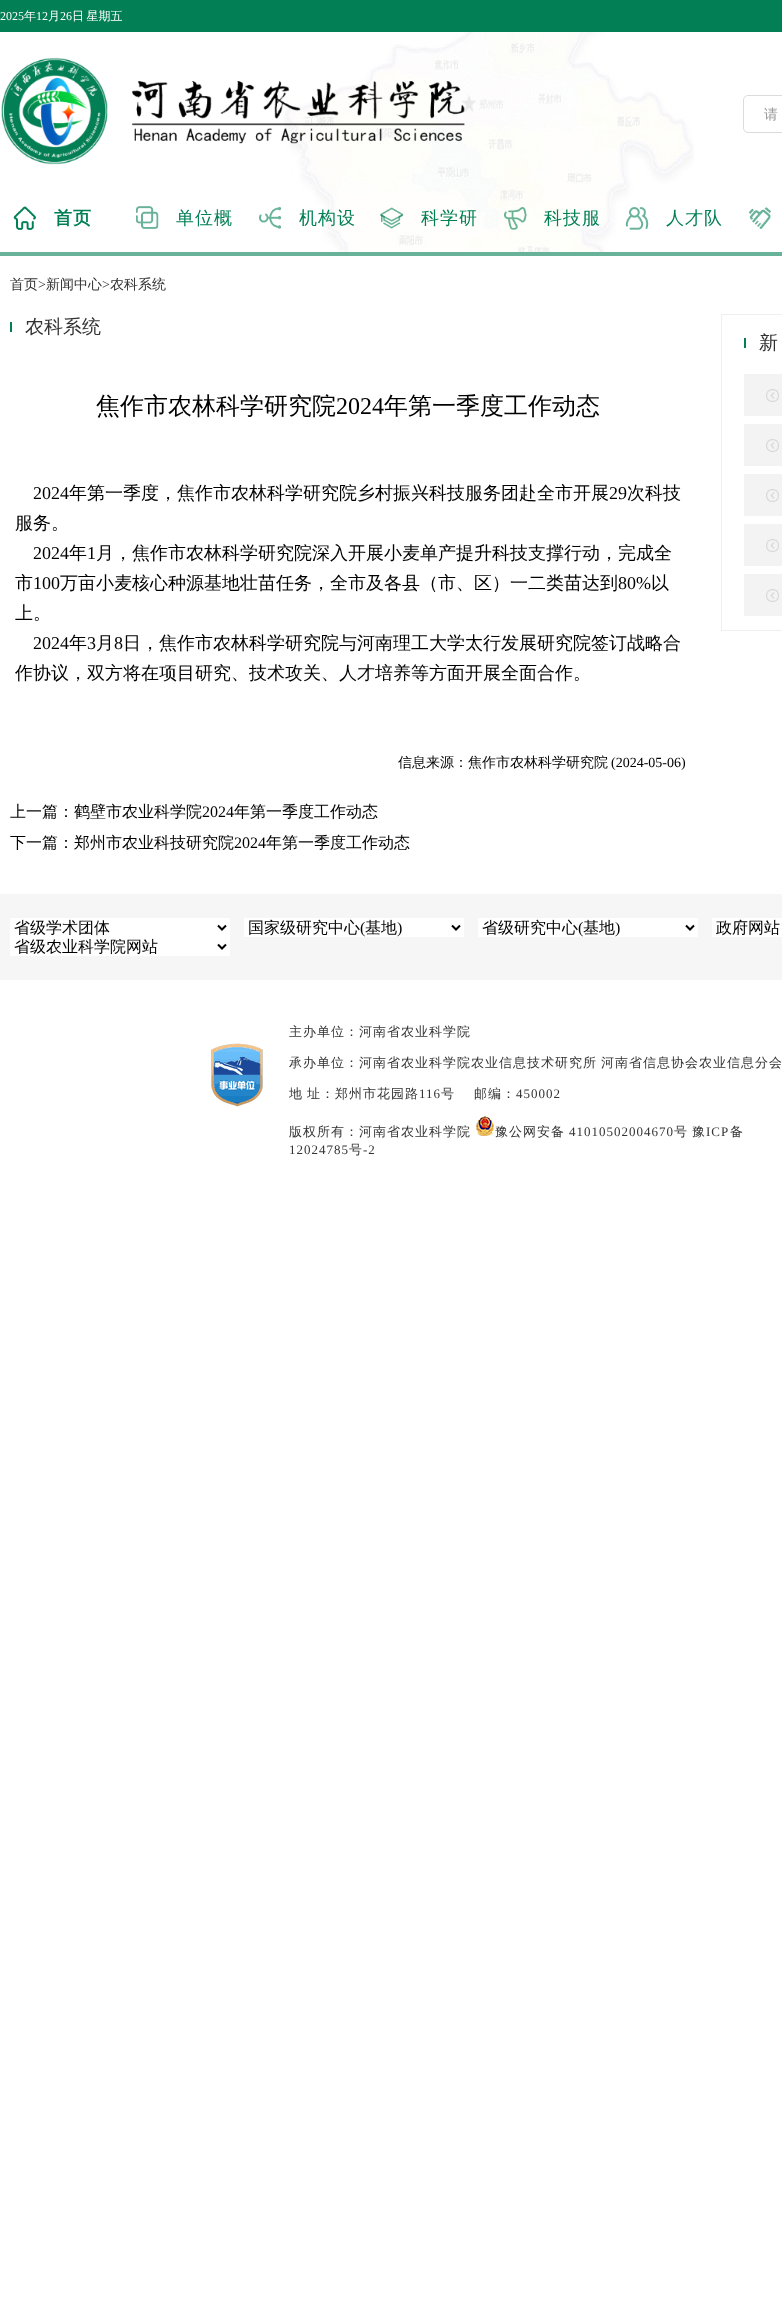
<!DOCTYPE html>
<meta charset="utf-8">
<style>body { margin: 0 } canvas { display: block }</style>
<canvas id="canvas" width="782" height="2321"></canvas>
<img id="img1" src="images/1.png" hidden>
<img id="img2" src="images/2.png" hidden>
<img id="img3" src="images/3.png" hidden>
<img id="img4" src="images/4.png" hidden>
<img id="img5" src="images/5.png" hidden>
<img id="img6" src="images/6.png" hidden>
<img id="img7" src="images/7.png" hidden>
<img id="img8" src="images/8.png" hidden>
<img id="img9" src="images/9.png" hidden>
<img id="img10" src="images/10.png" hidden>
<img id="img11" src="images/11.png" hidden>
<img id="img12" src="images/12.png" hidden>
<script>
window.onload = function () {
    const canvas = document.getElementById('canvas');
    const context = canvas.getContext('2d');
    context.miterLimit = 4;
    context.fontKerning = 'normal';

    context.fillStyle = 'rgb(255, 255, 255)';
    context.fillRect(0, 0, 782, 2321);
    context.fillStyle = 'rgb(2, 127, 84)';
    context.fillRect(0, 0, 782, 32);
    context.drawImage(document.getElementById('img1'), 284, 32, 410, 220);
    context.drawImage(document.getElementById('img2'), 1, 57, 464, 108);
    context.beginPath();
    context.roundRect(743.5, 95.5, 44, 37, 4.5);
    context.strokeStyle = 'rgb(219, 219, 219)';
    context.stroke();
    context.drawImage(document.getElementById('img3'), 13, 206, 23, 24);
    context.drawImage(document.getElementById('img4'), 136, 206, 23, 23);
    context.drawImage(document.getElementById('img5'), 259, 207, 23, 22);
    context.drawImage(document.getElementById('img6'), 380, 207, 24, 22);
    context.drawImage(document.getElementById('img7'), 504, 207, 23, 23);
    context.drawImage(document.getElementById('img8'), 625, 207, 24, 23);
    context.drawImage(document.getElementById('img9'), 748, 207, 23, 22);
    context.fillStyle = 'rgb(103, 178, 152)';
    context.fillRect(0, 252, 782, 4);
    context.fillStyle = 'rgb(2, 127, 84)';
    context.fillRect(10, 322, 2, 10);
    context.strokeStyle = 'rgb(239, 239, 239)';
    context.strokeRect(721.5, 314.5, 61, 316);
    context.fillRect(744, 338, 2, 10);
    context.fillStyle = 'rgb(243, 243, 243)';
    context.fillRect(744, 374, 38, 42);
    context.drawImage(document.getElementById('img10'), 766, 389, 13, 13);
    context.fillRect(744, 424, 38, 42);
    context.drawImage(document.getElementById('img10'), 766, 439, 13, 13);
    context.fillRect(744, 474, 38, 42);
    context.drawImage(document.getElementById('img10'), 766, 489, 13, 13);
    context.fillRect(744, 524, 38, 42);
    context.drawImage(document.getElementById('img10'), 766, 539, 13, 13);
    context.fillRect(744, 574, 38, 42);
    context.drawImage(document.getElementById('img10'), 766, 589, 13, 13);
    context.fillStyle = 'rgb(246, 246, 246)';
    context.fillRect(0, 894, 782, 86);
    context.fillStyle = 'rgb(255, 255, 255)';
    context.fillRect(10, 918, 220, 38);
    context.beginPath();
    context.moveTo(218, 925.5);
    context.lineTo(222, 929.5);
    context.lineTo(226, 925.5);
    context.strokeStyle = 'rgb(0, 0, 0)';
    context.lineWidth = 2;
    context.stroke();
    context.fillRect(244, 918, 220, 19);
    context.beginPath();
    context.moveTo(452, 925.5);
    context.lineTo(456, 929.5);
    context.lineTo(460, 925.5);
    context.stroke();
    context.fillRect(478, 918, 220, 19);
    context.beginPath();
    context.moveTo(686, 925.5);
    context.lineTo(690, 929.5);
    context.lineTo(694, 925.5);
    context.stroke();
    context.fillRect(712, 918, 70, 19);
    context.beginPath();
    context.moveTo(218, 944.5);
    context.lineTo(222, 948.5);
    context.lineTo(226, 944.5);
    context.stroke();
    context.drawImage(document.getElementById('img11'), 211, 1043, 52, 64);
    context.drawImage(document.getElementById('img12'), 476, 1116, 18, 20);
    context.font = '12px Liberation Serif';
    context.fillText('2025', 0, 20);
    context.font = '500 12px WenQuanYi Zen Hei';
    context.fillText('年', 24, 20);
    context.font = '12px Liberation Serif';
    context.fillText('12', 36, 20);
    context.font = '500 12px WenQuanYi Zen Hei';
    context.fillText('月', 48, 20);
    context.font = '12px Liberation Serif';
    context.fillText('26', 60, 20);
    context.wordSpacing = '-1px';
    context.font = '500 12px WenQuanYi Zen Hei';
    context.fillText('日 星期五', 72, 20);
    context.wordSpacing = '0px';
    context.font = '500 14px WenQuanYi Zen Hei';
    context.fillStyle = 'rgb(153, 153, 153)';
    context.fillText('请', 764, 119);
    context.letterSpacing = '1px';
    context.font = 'bold 18px WenQuanYi Zen Hei';
    context.fillStyle = 'rgb(2, 127, 84)';
    context.fillText('首页', 54, 224);
    context.font = '500 18px WenQuanYi Zen Hei';
    context.fillText('单位概', 176, 224);
    context.fillText('机构设', 299, 224);
    context.fillText('科学研', 421, 224);
    context.fillText('科技服', 544, 224);
    context.fillText('人才队', 666, 224);
    context.letterSpacing = '0px';
    context.font = '500 14px WenQuanYi Zen Hei';
    context.fillStyle = 'rgb(51, 51, 51)';
    context.fillText('首页', 10, 289);
    context.font = '14px Liberation Serif';
    context.fillText('>', 38, 289);
    context.font = '500 14px WenQuanYi Zen Hei';
    context.fillText('新闻中心', 46, 289);
    context.font = '14px Liberation Serif';
    context.fillText('>', 102, 289);
    context.font = '500 14px WenQuanYi Zen Hei';
    context.fillText('农科系统', 110, 289);
    context.font = '500 19px WenQuanYi Zen Hei';
    context.fillText('农科系统', 25, 333);
    context.font = '500 24px WenQuanYi Zen Hei';
    context.fillStyle = 'rgb(0, 0, 0)';
    context.fillText('焦作市农林科学研究院', 96, 414);
    context.font = '24px Liberation Serif';
    context.fillText('2024', 336, 414);
    context.font = '500 24px WenQuanYi Zen Hei';
    context.fillText('年第一季度工作动态', 384, 414);
    context.font = '18px Liberation Serif';
    context.fillText('2024', 33, 499);
    context.font = '500 18px WenQuanYi Zen Hei';
    context.fillText('年第一季度，焦作市农林科学研究院乡村振兴科技服务团赴全市开展', 69, 499);
    context.font = '18px Liberation Serif';
    context.fillText('29', 609, 499);
    context.font = '500 18px WenQuanYi Zen Hei';
    context.fillText('次科技', 627, 499);
    context.fillText('服务。', 15, 529);
    context.font = '18px Liberation Serif';
    context.fillText('2024', 33, 559);
    context.font = '500 18px WenQuanYi Zen Hei';
    context.fillText('年', 69, 559);
    context.font = '18px Liberation Serif';
    context.fillText('1', 87, 559);
    context.font = '500 18px WenQuanYi Zen Hei';
    context.fillText('月，焦作市农林科学研究院深入开展小麦单产提升科技支撑行动，完成全', 96, 559);
    context.fillText('市', 15, 589);
    context.font = '18px Liberation Serif';
    context.fillText('100', 33, 589);
    context.font = '500 18px WenQuanYi Zen Hei';
    context.fillText('万亩小麦核心种源基地壮苗任务，全市及各县（市、区）一二类苗达到', 60, 589);
    context.font = '18px Liberation Serif';
    context.fillText('80%', 618, 589);
    context.font = '500 18px WenQuanYi Zen Hei';
    context.fillText('以', 651, 589);
    context.fillText('上。', 15, 619);
    context.font = '18px Liberation Serif';
    context.fillText('2024', 33, 649);
    context.font = '500 18px WenQuanYi Zen Hei';
    context.fillText('年', 69, 649);
    context.font = '18px Liberation Serif';
    context.fillText('3', 87, 649);
    context.font = '500 18px WenQuanYi Zen Hei';
    context.fillText('月', 96, 649);
    context.font = '18px Liberation Serif';
    context.fillText('8', 114, 649);
    context.font = '500 18px WenQuanYi Zen Hei';
    context.fillText('日，焦作市农林科学研究院与河南理工大学太行发展研究院签订战略合', 123, 649);
    context.fillText('作协议，双方将在项目研究、技术攻关、人才培养等方面开展全面合作。', 15, 679);
    context.font = '500 14px WenQuanYi Zen Hei';
    context.fillText('信息来源：焦作市农林科学研究院', 398, 767);
    context.font = '14px Liberation Serif';
    context.fillText('(2024-05-06)', 611, 767);
    context.font = '500 16px WenQuanYi Zen Hei';
    context.fillText('上一篇：鹤壁市农业科学院', 10, 817);
    context.font = '16px Liberation Serif';
    context.fillText('2024', 202, 817);
    context.font = '500 16px WenQuanYi Zen Hei';
    context.fillText('年第一季度工作动态', 234, 817);
    context.fillText('下一篇：郑州市农业科技研究院', 10, 848);
    context.font = '16px Liberation Serif';
    context.fillText('2024', 234, 848);
    context.font = '500 16px WenQuanYi Zen Hei';
    context.fillText('年第一季度工作动态', 266, 848);
    context.font = '500 19px WenQuanYi Zen Hei';
    context.fillStyle = 'rgb(51, 51, 51)';
    context.fillText('新', 759, 349);
    context.font = '500 16px WenQuanYi Zen Hei';
    context.fillStyle = 'rgb(0, 0, 0)';
    context.fillText('省级学术团体', 14, 933);
    context.fillText('国家级研究中心', 248, 933);
    context.font = '16px Liberation Serif';
    context.fillText('(', 360, 933);
    context.font = '500 16px WenQuanYi Zen Hei';
    context.fillText('基地', 365, 933);
    context.font = '16px Liberation Serif';
    context.fillText(')', 397, 933);
    context.font = '500 16px WenQuanYi Zen Hei';
    context.fillText('省级研究中心', 482, 933);
    context.font = '16px Liberation Serif';
    context.fillText('(', 578, 933);
    context.font = '500 16px WenQuanYi Zen Hei';
    context.fillText('基地', 583, 933);
    context.font = '16px Liberation Serif';
    context.fillText(')', 615, 933);
    context.font = '500 16px WenQuanYi Zen Hei';
    context.fillText('政府网站', 716, 933);
    context.fillText('省级农业科学院网站', 14, 952);
    context.letterSpacing = '1px';
    context.font = '500 13px WenQuanYi Zen Hei';
    context.fillStyle = 'rgb(51, 51, 51)';
    context.fillText('主办单位：河南省农业科学院', 289, 1036);
    context.wordSpacing = '-1px';
    context.fillText('承办单位：河南省农业科学院农业信息技术研究所 河南省信息协会农业信息分会', 289, 1067);
    context.save();
    context.beginPath();
    context.rect(289, 1010, 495, 149);
    context.clip();
    context.wordSpacing = '0px';
    context.fillText('地', 289, 1098);
    context.restore();
    context.wordSpacing = '0px';
    context.fillText('址：郑州市花园路', 307, 1098);
    context.font = '13px Liberation Serif';
    context.fillText('116', 419, 1098);
    context.font = '500 13px WenQuanYi Zen Hei';
    context.fillText('号 　邮编：', 441, 1098);
    context.font = '13px Liberation Serif';
    context.fillText('450002', 516, 1098);
    context.font = '500 13px WenQuanYi Zen Hei';
    context.fillText('版权所有：河南省农业科学院', 289, 1136);
    context.fillText('豫公网安备', 495, 1136);
    context.font = '13px Liberation Serif';
    context.fillText('41010502004670', 569, 1136);
    context.font = '500 13px WenQuanYi Zen Hei';
    context.fillText('号', 674, 1136);
    context.fillText('豫', 692, 1136);
    context.font = '13px Liberation Serif';
    context.fillText('ICP', 706, 1136);
    context.font = '500 13px WenQuanYi Zen Hei';
    context.fillText('备', 730, 1136);
    context.font = '13px Liberation Serif';
    context.fillText('12024785', 289, 1154);
    context.font = '500 13px WenQuanYi Zen Hei';
    context.fillText('号', 349, 1154);
    context.font = '13px Liberation Serif';
    context.fillText('-2', 363, 1154);
};
</script>
